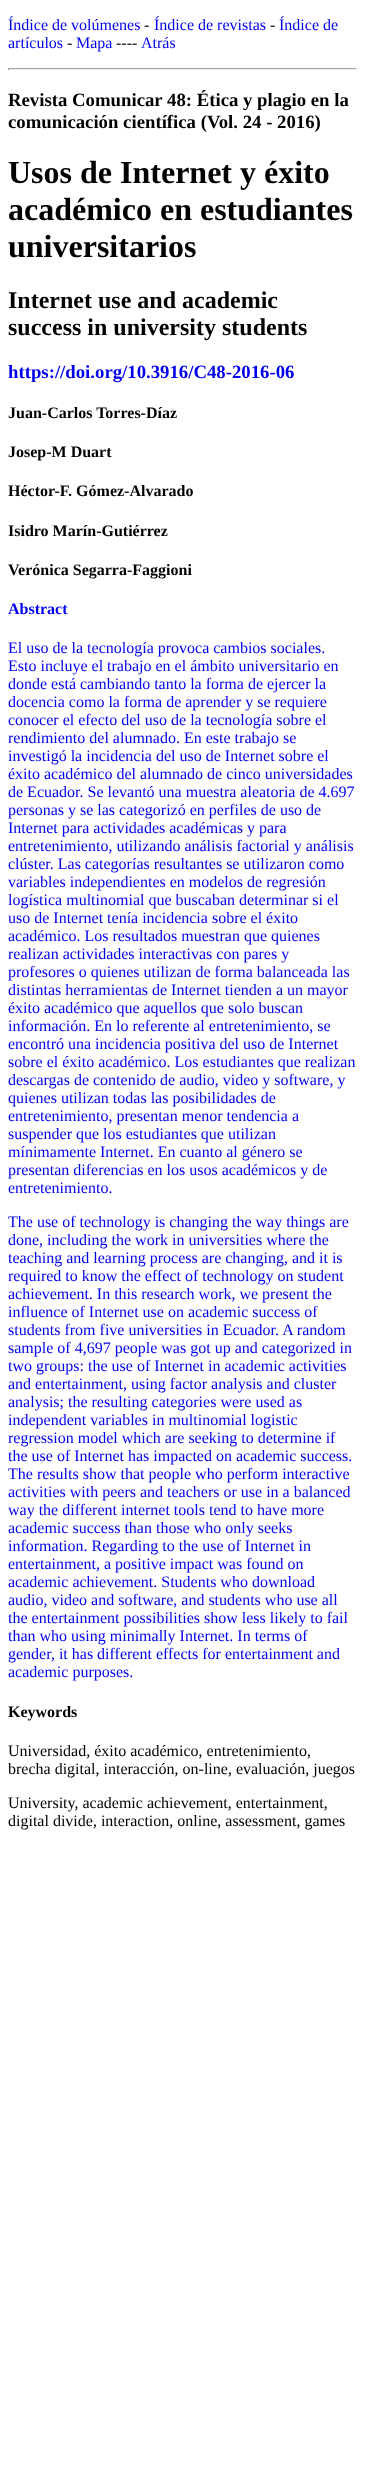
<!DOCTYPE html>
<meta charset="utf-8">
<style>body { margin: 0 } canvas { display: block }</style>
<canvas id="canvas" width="365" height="2467"></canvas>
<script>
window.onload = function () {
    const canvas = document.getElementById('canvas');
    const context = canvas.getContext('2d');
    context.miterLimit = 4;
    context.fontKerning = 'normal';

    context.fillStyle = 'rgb(255, 255, 255)';
    context.fillRect(0, 0, 365, 2467);
    context.fillStyle = 'rgb(159, 159, 159)';
    context.fillRect(8, 68, 349, 1);
    context.fillStyle = 'rgb(238, 238, 238)';
    context.fillRect(356, 68, 1, 2);
    context.fillRect(8, 69, 349, 1);
    context.fillStyle = 'rgb(159, 159, 159)';
    context.fillRect(8, 68, 1, 2);
    context.font = '16px Liberation Serif';
    context.fillStyle = 'rgb(0, 0, 238)';
    context.fillText('Índice de volúmenes', 8, 30);
    context.fillStyle = 'rgb(0, 0, 0)';
    context.fillText('-', 144, 30);
    context.fillStyle = 'rgb(0, 0, 238)';
    context.fillText('Índice de revistas', 154, 30);
    context.fillStyle = 'rgb(0, 0, 0)';
    context.fillText('-', 270, 30);
    context.fillStyle = 'rgb(0, 0, 238)';
    context.fillText('Índice de', 279, 30);
    context.fillText('artículos', 8, 48);
    context.fillStyle = 'rgb(0, 0, 0)';
    context.fillText('-', 67, 48);
    context.fillStyle = 'rgb(0, 0, 238)';
    context.fillText('Mapa', 76, 48);
    context.fillStyle = 'rgb(0, 0, 0)';
    context.fillText('----', 116, 48);
    context.fillStyle = 'rgb(0, 0, 238)';
    context.fillText('Atrás', 141, 48);
    context.font = 'bold 18.75px Liberation Serif';
    context.fillStyle = 'rgb(0, 0, 0)';
    context.fillText('Revista Comunicar 48: Ética y plagio en la', 8, 106);
    context.fillText('comunicación científica (Vol. 24 - 2016)', 8, 128);
    context.font = 'bold 32px Liberation Serif';
    context.fillText('Usos de Internet y éxito', 8, 183);
    context.fillText('académico en estudiantes', 8, 220);
    context.fillText('universitarios', 8, 257);
    context.font = 'bold 24px Liberation Serif';
    context.fillText('Internet use and academic', 8, 308);
    context.fillText('success in university students', 8, 335);
    context.font = 'bold 18.75px Liberation Serif';
    context.fillStyle = 'rgb(0, 0, 238)';
    context.fillText('https://doi.org/10.3916/C48-2016-06', 8, 378);
    context.font = 'bold 16px Liberation Serif';
    context.fillStyle = 'rgb(0, 0, 0)';
    context.fillText('Juan-Carlos Torres-Díaz', 8, 418);
    context.fillText('Josep-M Duart', 8, 457);
    context.fillText('Héctor-F. Gómez-Alvarado', 8, 496);
    context.fillText('Isidro Marín-Gutiérrez', 8, 536);
    context.fillText('Verónica Segarra-Faggioni', 8, 575);
    context.fillStyle = 'rgb(0, 0, 238)';
    context.fillText('Abstract', 8, 614);
    context.font = '16px Liberation Serif';
    context.fillText('El uso de la tecnología provoca cambios sociales.', 8, 653);
    context.fillText('Esto incluye el trabajo en el ámbito universitario en', 8, 671);
    context.fillText('donde está cambiando tanto la forma de ejercer la', 8, 689);
    context.fillText('docencia como la forma de aprender y se requiere', 8, 707);
    context.fillText('conocer el efecto del uso de la tecnología sobre el', 8, 725);
    context.fillText('rendimiento del alumnado. En este trabajo se', 8, 743);
    context.fillText('investigó la incidencia del uso de Internet sobre el', 8, 761);
    context.fillText('éxito académico del alumnado de cinco universidades', 8, 779);
    context.fillText('de Ecuador. Se levantó una muestra aleatoria de 4.697', 8, 797);
    context.fillText('personas y se las categorizó en perfiles de uso de', 8, 815);
    context.fillText('Internet para actividades académicas y para', 8, 833);
    context.fillText('entretenimiento, utilizando análisis factorial y análisis', 8, 851);
    context.fillText('clúster. Las categorías resultantes se utilizaron como', 8, 869);
    context.fillText('variables independientes en modelos de regresión', 8, 887);
    context.fillText('logística multinomial que buscaban determinar si el', 8, 905);
    context.fillText('uso de Internet tenía incidencia sobre el éxito', 8, 923);
    context.fillText('académico. Los resultados muestran que quienes', 8, 941);
    context.fillText('realizan actividades interactivas con pares y', 8, 959);
    context.fillText('profesores o quienes utilizan de forma balanceada las', 8, 977);
    context.fillText('distintas herramientas de Internet tienden a un mayor', 8, 995);
    context.fillText('éxito académico que aquellos que solo buscan', 8, 1013);
    context.fillText('información. En lo referente al entretenimiento, se', 8, 1031);
    context.fillText('encontró una incidencia positiva del uso de Internet', 8, 1049);
    context.fillText('sobre el éxito académico. Los estudiantes que realizan', 8, 1067);
    context.fillText('descargas de contenido de audio, video y software, y', 8, 1085);
    context.fillText('quienes utilizan todas las posibilidades de', 8, 1103);
    context.fillText('entretenimiento, presentan menor tendencia a', 8, 1121);
    context.fillText('suspender que los estudiantes que utilizan', 8, 1139);
    context.fillText('mínimamente Internet. En cuanto al género se', 8, 1157);
    context.fillText('presentan diferencias en los usos académicos y de', 8, 1175);
    context.fillText('entretenimiento.', 8, 1193);
    context.fillText('The use of technology is changing the way things are', 8, 1227);
    context.fillText('done, including the work in universities where the', 8, 1245);
    context.fillText('teaching and learning process are changing, and it is', 8, 1263);
    context.fillText('required to know the effect of technology on student', 8, 1281);
    context.fillText('achievement. In this research work, we present the', 8, 1299);
    context.fillText('influence of Internet use on academic success of', 8, 1317);
    context.fillText('students from five universities in Ecuador. A random', 8, 1335);
    context.fillText('sample of 4,697 people was got up and categorized in', 8, 1353);
    context.fillText('two groups: the use of Internet in academic activities', 8, 1371);
    context.fillText('and entertainment, using factor analysis and cluster', 8, 1389);
    context.fillText('analysis; the resulting categories were used as', 8, 1407);
    context.fillText('independent variables in multinomial logistic', 8, 1425);
    context.fillText('regression model which are seeking to determine if', 8, 1443);
    context.fillText('the use of Internet has impacted on academic success.', 8, 1461);
    context.fillText('The results show that people who perform interactive', 8, 1479);
    context.fillText('activities with peers and teachers or use in a balanced', 8, 1497);
    context.fillText('way the different internet tools tend to have more', 8, 1515);
    context.fillText('academic success than those who only seeks', 8, 1533);
    context.fillText('information. Regarding to the use of Internet in', 8, 1551);
    context.fillText('entertainment, a positive impact was found on', 8, 1569);
    context.fillText('academic achievement. Students who download', 8, 1587);
    context.fillText('audio, video and software, and students who use all', 8, 1605);
    context.fillText('the entertainment possibilities show less likely to fail', 8, 1623);
    context.fillText('than who using minimally Internet. In terms of', 8, 1641);
    context.fillText('gender, it has different effects for entertainment and', 8, 1659);
    context.fillText('academic purposes.', 8, 1677);
    context.font = 'bold 16px Liberation Serif';
    context.fillStyle = 'rgb(0, 0, 0)';
    context.fillText('Keywords', 8, 1717);
    context.font = '16px Liberation Serif';
    context.fillText('Universidad, éxito académico, entretenimiento,', 8, 1756);
    context.fillText('brecha digital, interacción, on-line, evaluación, juegos', 8, 1774);
    context.fillText('University, academic achievement, entertainment,', 8, 1808);
    context.fillText('digital divide, interaction, online, assessment, games', 8, 1826);
};
</script>
